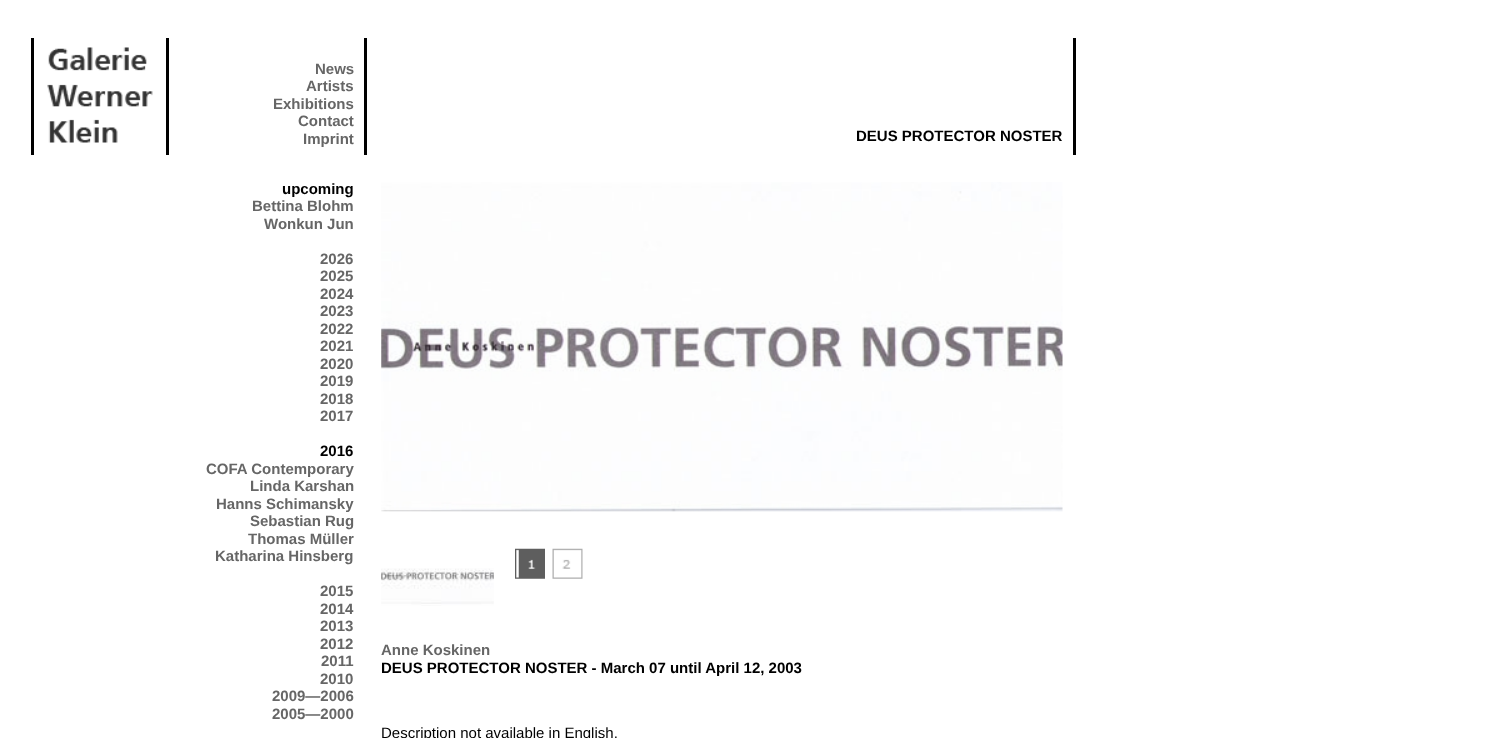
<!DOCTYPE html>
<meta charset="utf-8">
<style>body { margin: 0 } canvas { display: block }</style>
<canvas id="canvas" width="1501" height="738"></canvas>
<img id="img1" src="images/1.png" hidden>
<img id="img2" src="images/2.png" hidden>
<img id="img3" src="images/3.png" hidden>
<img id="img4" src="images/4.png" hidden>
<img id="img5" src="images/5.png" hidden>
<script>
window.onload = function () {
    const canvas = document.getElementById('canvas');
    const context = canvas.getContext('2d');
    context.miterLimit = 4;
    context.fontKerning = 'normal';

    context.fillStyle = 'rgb(255, 255, 255)';
    context.fillRect(0, 0, 1501, 738);
    context.fillStyle = 'rgb(0, 0, 0)';
    context.fillRect(166, 38, 3, 117);
    context.fillRect(31, 38, 3, 117);
    context.drawImage(document.getElementById('img1'), 47, 47, 106, 96);
    context.fillRect(364, 38, 3, 117);
    context.fillRect(1073, 38, 3, 117);
    context.drawImage(document.getElementById('img2'), 381, 182, 682, 330);
    context.drawImage(document.getElementById('img3'), 515, 548, 30, 31);
    context.drawImage(document.getElementById('img4'), 552, 548, 31, 31);
    context.drawImage(document.getElementById('img5'), 381, 568, 113, 38);
    context.font = 'bold 15px Liberation Sans';
    context.fillStyle = 'rgb(102, 102, 102)';
    context.fillText('News', 315, 74);
    context.fillText('Artists', 306, 91);
    context.fillText('Exhibitions', 273, 109);
    context.fillText('Contact', 298, 126);
    context.fillText('Imprint', 303, 144);
    context.fillStyle = 'rgb(0, 0, 0)';
    context.fillText('DEUS PROTECTOR NOSTER', 856, 141);
    context.fillText('upcoming', 282, 194);
    context.fillStyle = 'rgb(102, 102, 102)';
    context.fillText('Bettina Blohm', 252, 211);
    context.fillText('Wonkun Jun', 264, 229);
    context.fillText('2026', 320, 264);
    context.fillText('2025', 320, 281);
    context.fillText('2024', 320, 299);
    context.fillText('2023', 320, 316);
    context.fillText('2022', 320, 334);
    context.fillText('2021', 320, 351);
    context.fillText('2020', 320, 369);
    context.fillText('2019', 320, 386);
    context.fillText('2018', 320, 404);
    context.fillText('2017', 320, 421);
    context.fillStyle = 'rgb(0, 0, 0)';
    context.fillText('2016', 320, 456);
    context.fillStyle = 'rgb(102, 102, 102)';
    context.fillText('COFA Contemporary', 206, 474);
    context.fillText('Linda Karshan', 250, 491);
    context.fillText('Hanns Schimansky', 216, 509);
    context.fillText('Sebastian Rug', 250, 526);
    context.fillText('Thomas Müller', 248, 544);
    context.fillText('Katharina Hinsberg', 215, 561);
    context.fillText('2015', 320, 596);
    context.fillText('2014', 320, 614);
    context.fillText('2013', 320, 631);
    context.fillText('2012', 320, 649);
    context.fillText('2011', 321, 666);
    context.fillText('2010', 320, 684);
    context.fillText('2009—2006', 272, 701);
    context.fillText('2005—2000', 272, 719);
    context.fillText('Anne Koskinen', 381, 655);
    context.fillStyle = 'rgb(0, 0, 0)';
    context.fillText('DEUS PROTECTOR NOSTER - March 07 until April 12, 2003', 381, 673);
    context.font = '15px Liberation Sans';
    context.fillText('Description not available in English.', 381, 738);
};
</script>
